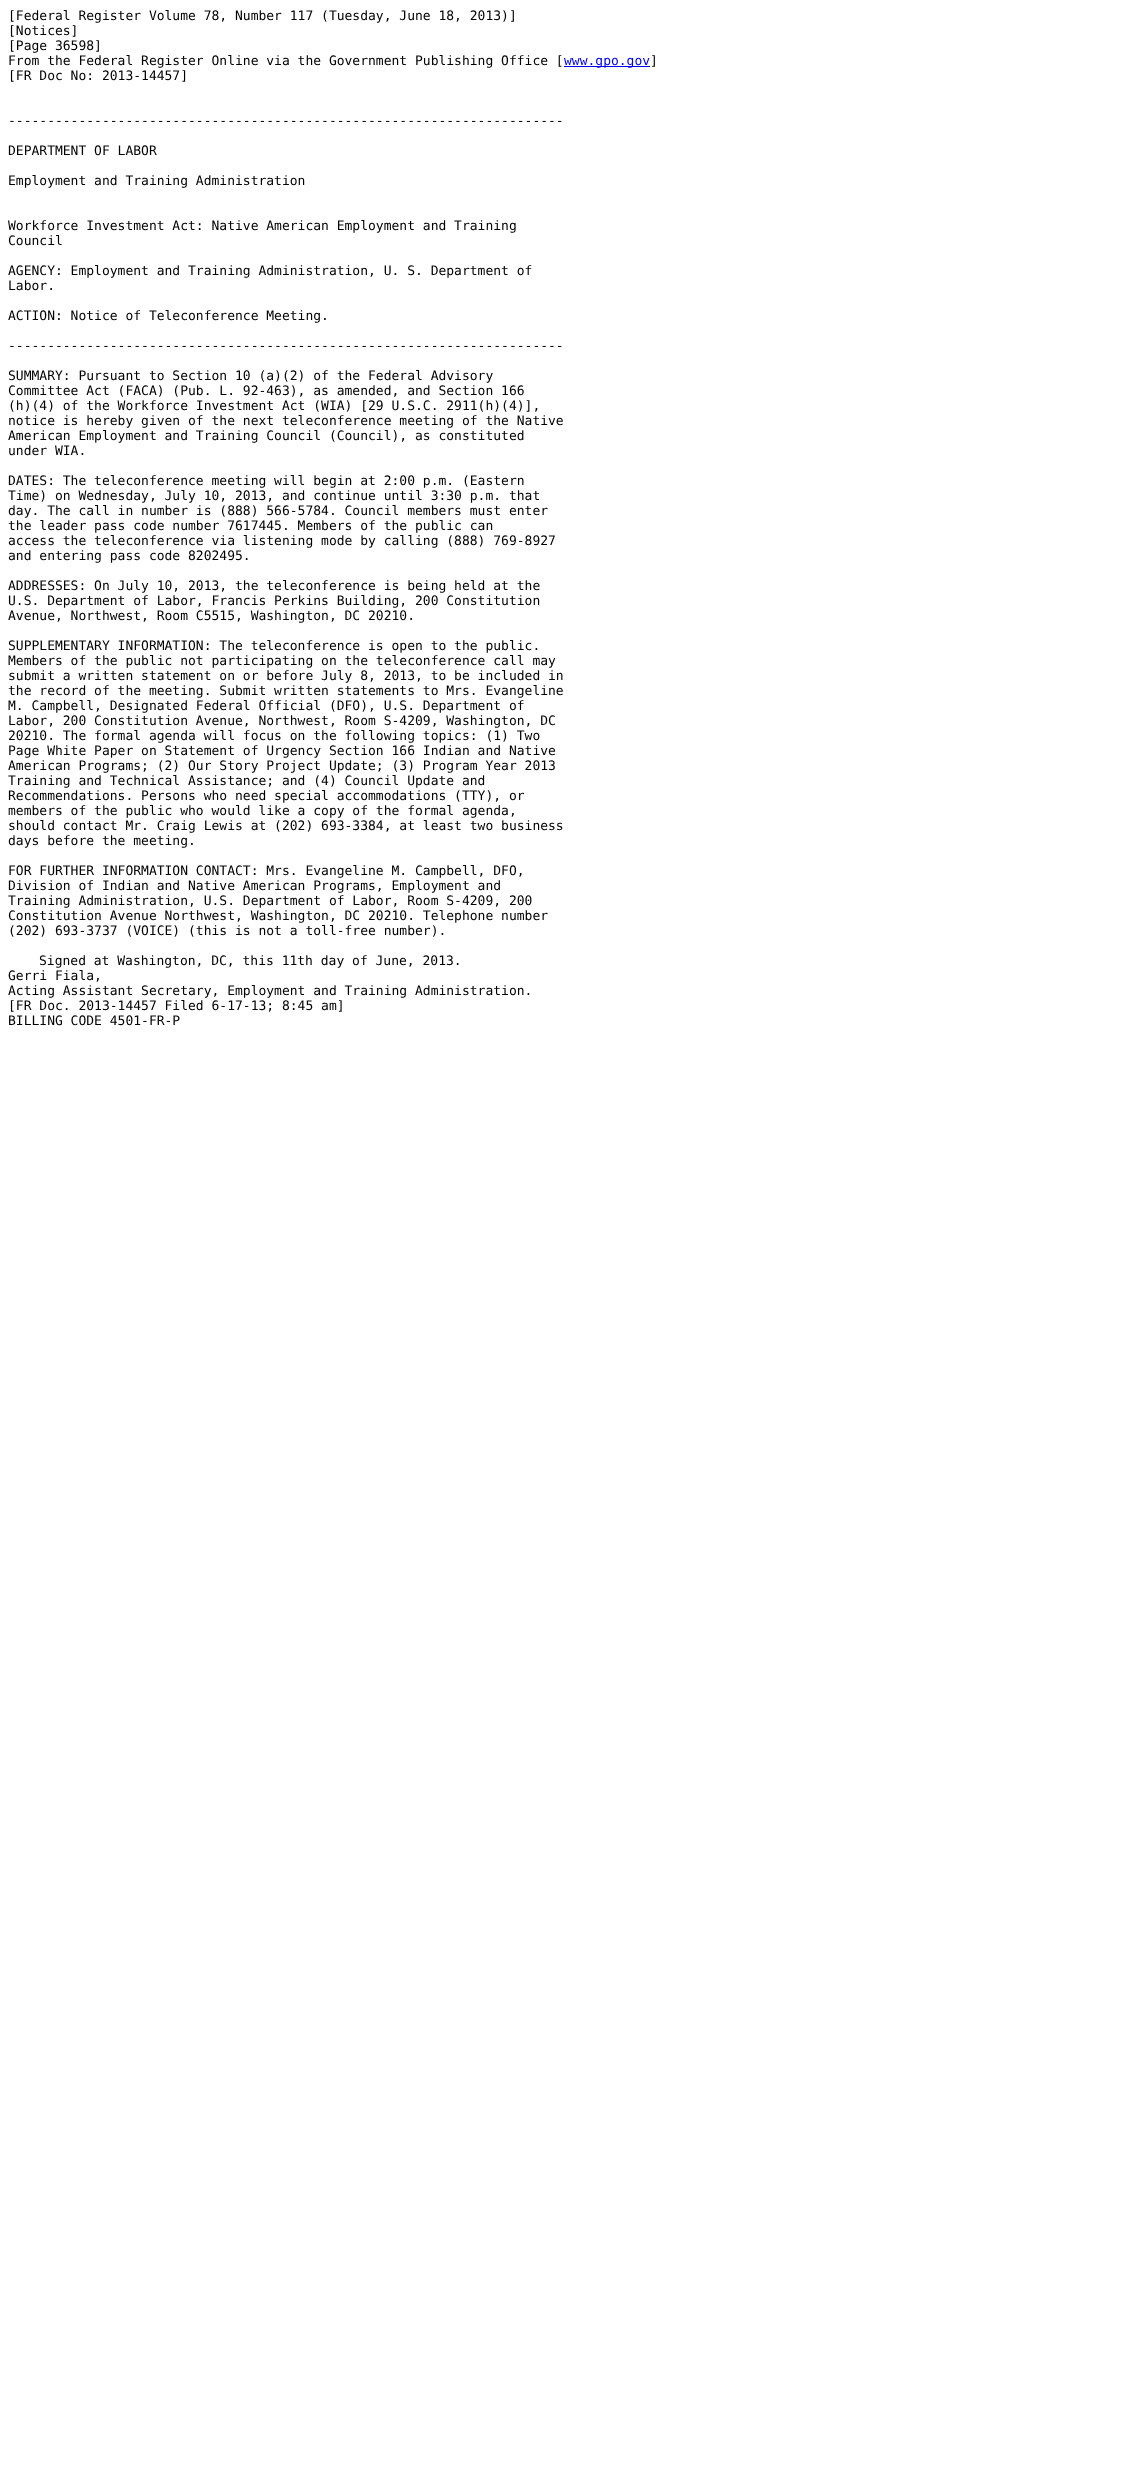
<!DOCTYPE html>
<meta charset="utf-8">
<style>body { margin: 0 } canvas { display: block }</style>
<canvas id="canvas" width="1130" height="2484"></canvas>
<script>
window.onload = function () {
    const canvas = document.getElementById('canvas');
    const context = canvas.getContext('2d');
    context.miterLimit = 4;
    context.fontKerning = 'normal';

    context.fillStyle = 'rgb(255, 255, 255)';
    context.fillRect(0, 0, 1130, 2484);
    context.fillStyle = 'rgb(0, 0, 238)';
    context.fillRect(564, 66, 86, 1);
    context.font = '13px DejaVu Sans Mono';
    context.fillStyle = 'rgb(0, 0, 0)';
    context.fillText('[Federal Register Volume 78, Number 117 (Tuesday, June 18, 2013)]', 8, 20);
    context.fillText('[Notices]', 8, 35);
    context.fillText('[Page 36598]', 8, 50);
    context.fillText('From the Federal Register Online via the Government Publishing Office [', 8, 65);
    context.fillStyle = 'rgb(0, 0, 238)';
    context.fillText('www.gpo.gov', 564, 65);
    context.fillStyle = 'rgb(0, 0, 0)';
    context.fillText(']', 650, 65);
    context.fillText('[FR Doc No: 2013-14457]', 8, 80);
    context.fillText('-----------------------------------------------------------------------', 8, 125);
    context.fillText('DEPARTMENT OF LABOR', 8, 155);
    context.fillText('Employment and Training Administration', 8, 185);
    context.fillText('Workforce Investment Act: Native American Employment and Training', 8, 230);
    context.fillText('Council', 8, 245);
    context.fillText('AGENCY: Employment and Training Administration, U. S. Department of', 8, 275);
    context.fillText('Labor.', 8, 290);
    context.fillText('ACTION: Notice of Teleconference Meeting.', 8, 320);
    context.fillText('-----------------------------------------------------------------------', 8, 350);
    context.fillText('SUMMARY: Pursuant to Section 10 (a)(2) of the Federal Advisory', 8, 380);
    context.fillText('Committee Act (FACA) (Pub. L. 92-463), as amended, and Section 166', 8, 395);
    context.fillText('(h)(4) of the Workforce Investment Act (WIA) [29 U.S.C. 2911(h)(4)],', 8, 410);
    context.fillText('notice is hereby given of the next teleconference meeting of the Native', 8, 425);
    context.fillText('American Employment and Training Council (Council), as constituted', 8, 440);
    context.fillText('under WIA.', 8, 455);
    context.fillText('DATES: The teleconference meeting will begin at 2:00 p.m. (Eastern', 8, 485);
    context.fillText('Time) on Wednesday, July 10, 2013, and continue until 3:30 p.m. that', 8, 500);
    context.fillText('day. The call in number is (888) 566-5784. Council members must enter', 8, 515);
    context.fillText('the leader pass code number 7617445. Members of the public can', 8, 530);
    context.fillText('access the teleconference via listening mode by calling (888) 769-8927', 8, 545);
    context.fillText('and entering pass code 8202495.', 8, 560);
    context.fillText('ADDRESSES: On July 10, 2013, the teleconference is being held at the', 8, 590);
    context.fillText('U.S. Department of Labor, Francis Perkins Building, 200 Constitution', 8, 605);
    context.fillText('Avenue, Northwest, Room C5515, Washington, DC 20210.', 8, 620);
    context.fillText('SUPPLEMENTARY INFORMATION: The teleconference is open to the public.', 8, 650);
    context.fillText('Members of the public not participating on the teleconference call may', 8, 665);
    context.fillText('submit a written statement on or before July 8, 2013, to be included in', 8, 680);
    context.fillText('the record of the meeting. Submit written statements to Mrs. Evangeline', 8, 695);
    context.fillText('M. Campbell, Designated Federal Official (DFO), U.S. Department of', 8, 710);
    context.fillText('Labor, 200 Constitution Avenue, Northwest, Room S-4209, Washington, DC', 8, 725);
    context.fillText('20210. The formal agenda will focus on the following topics: (1) Two', 8, 740);
    context.fillText('Page White Paper on Statement of Urgency Section 166 Indian and Native', 8, 755);
    context.fillText('American Programs; (2) Our Story Project Update; (3) Program Year 2013', 8, 770);
    context.fillText('Training and Technical Assistance; and (4) Council Update and', 8, 785);
    context.fillText('Recommendations. Persons who need special accommodations (TTY), or', 8, 800);
    context.fillText('members of the public who would like a copy of the formal agenda,', 8, 815);
    context.fillText('should contact Mr. Craig Lewis at (202) 693-3384, at least two business', 8, 830);
    context.fillText('days before the meeting.', 8, 845);
    context.fillText('FOR FURTHER INFORMATION CONTACT: Mrs. Evangeline M. Campbell, DFO,', 8, 875);
    context.fillText('Division of Indian and Native American Programs, Employment and', 8, 890);
    context.fillText('Training Administration, U.S. Department of Labor, Room S-4209, 200', 8, 905);
    context.fillText('Constitution Avenue Northwest, Washington, DC 20210. Telephone number', 8, 920);
    context.fillText('(202) 693-3737 (VOICE) (this is not a toll-free number).', 8, 935);
    context.fillText('Signed at Washington, DC, this 11th day of June, 2013.', 39, 965);
    context.fillText('Gerri Fiala,', 8, 980);
    context.fillText('Acting Assistant Secretary, Employment and Training Administration.', 8, 995);
    context.fillText('[FR Doc. 2013-14457 Filed 6-17-13; 8:45 am]', 8, 1010);
    context.fillText('BILLING CODE 4501-FR-P', 8, 1025);
};
</script>
